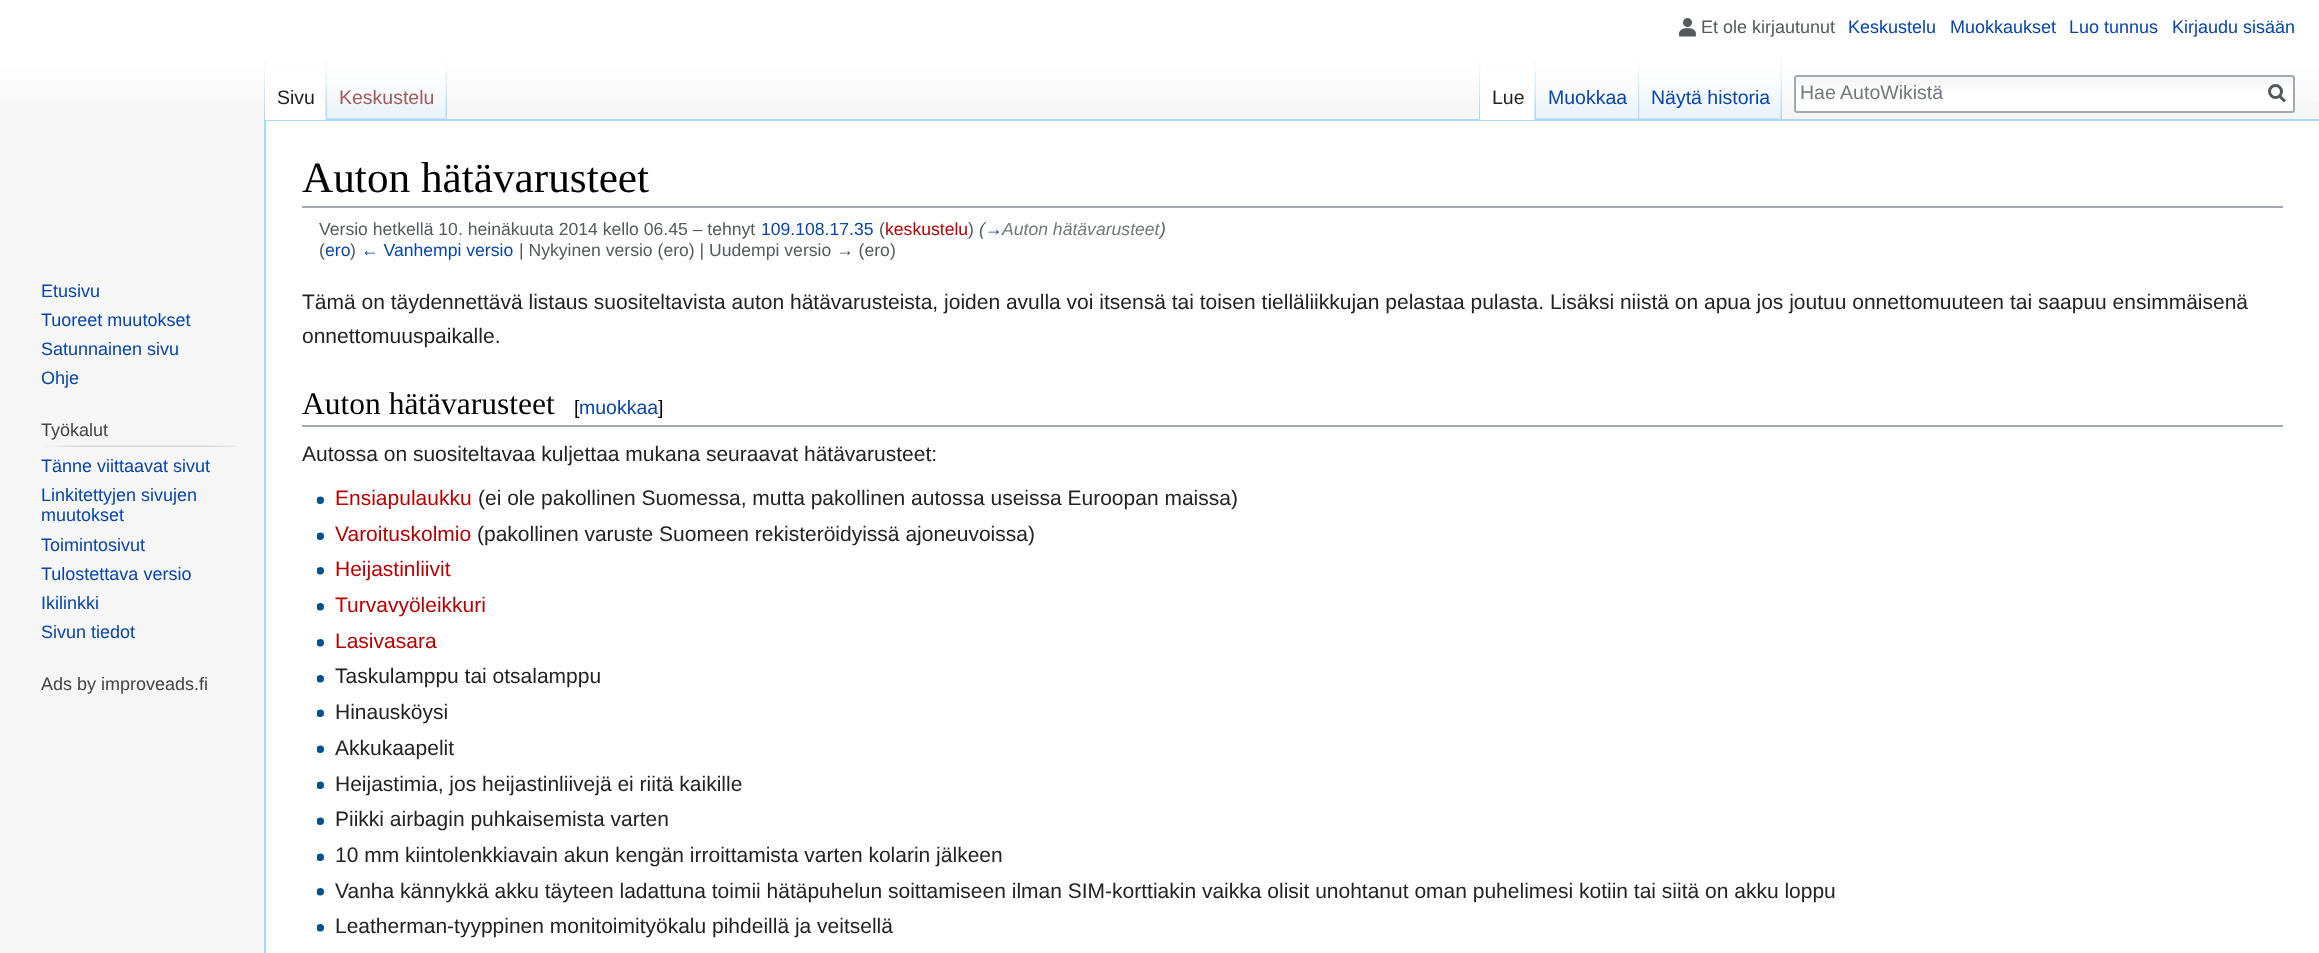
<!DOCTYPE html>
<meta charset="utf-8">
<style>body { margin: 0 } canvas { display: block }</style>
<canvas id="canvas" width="2319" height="953"></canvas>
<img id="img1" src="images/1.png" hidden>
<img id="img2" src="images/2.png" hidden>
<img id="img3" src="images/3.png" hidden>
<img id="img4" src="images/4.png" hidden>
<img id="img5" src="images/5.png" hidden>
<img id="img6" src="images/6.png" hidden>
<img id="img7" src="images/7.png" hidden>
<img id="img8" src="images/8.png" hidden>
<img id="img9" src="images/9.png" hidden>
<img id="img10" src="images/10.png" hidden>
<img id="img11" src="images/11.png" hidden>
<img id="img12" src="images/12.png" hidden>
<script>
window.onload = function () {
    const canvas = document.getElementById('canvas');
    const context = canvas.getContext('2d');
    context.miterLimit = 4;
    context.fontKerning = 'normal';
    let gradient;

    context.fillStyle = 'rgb(246, 246, 246)';
    context.fillRect(0, 0, 2319, 953);
    gradient = context.createLinearGradient(1160, 0, 1160, 120);
    gradient.addColorStop(0.5, 'rgb(255, 255, 255)');
    gradient.addColorStop(1, 'rgb(246, 246, 246)');
    context.fillStyle = gradient;
    context.fillRect(0, 0, 2319, 103);
    context.drawImage(document.getElementById('img1'), 1679, 18, 17, 19);
    context.drawImage(document.getElementById('img2'), 264, 60, 2, 59);
    context.fillStyle = 'rgb(167, 215, 249)';
    context.fillRect(264, 119, 2055, 2);
    context.fillRect(264, 119, 2, 834);
    context.fillStyle = 'rgb(255, 255, 255)';
    context.fillRect(265, 70, 61, 50);
    context.drawImage(document.getElementById('img3'), 325, 60, 2, 60);
    context.drawImage(document.getElementById('img4'), 327, 60, 119, 59);
    context.drawImage(document.getElementById('img5'), 445, 60, 2, 59);
    context.drawImage(document.getElementById('img2'), 1479, 60, 2, 59);
    context.fillRect(1480, 70, 55, 50);
    context.drawImage(document.getElementById('img3'), 1534, 60, 2, 60);
    context.drawImage(document.getElementById('img6'), 1536, 92, 104, 27);
    context.drawImage(document.getElementById('img7'), 1638, 60, 2, 59);
    context.drawImage(document.getElementById('img8'), 1639, 60, 142, 59);
    context.drawImage(document.getElementById('img5'), 1780, 60, 2, 59);
    context.beginPath();
    context.roundRect(1794, 75, 501, 38, 3);
    context.fill();
    context.drawImage(document.getElementById('img9'), 1794, 76, 501, 13);
    context.beginPath();
    context.roundRect(1795, 76, 499, 36, 2);
    context.strokeStyle = 'rgb(162, 169, 177)';
    context.lineWidth = 2;
    context.stroke();
    context.beginPath();
    context.moveTo(2285, 101.5);
    context.lineTo(2279, 95.5);
    context.strokeStyle = 'rgb(84, 89, 93)';
    context.lineWidth = 3;
    context.stroke();
    context.beginPath();
    context.arc(2275.5, 91.5, 6, 0, 2 * Math.PI);
    context.stroke();
    context.drawImage(document.getElementById('img10'), 44, 445, 193, 2);
    context.fillRect(266, 121, 2053, 832);
    context.fillStyle = 'rgb(162, 169, 177)';
    context.fillRect(302, 206, 1981, 2);
    context.fillRect(302, 425, 1981, 2);
    context.drawImage(document.getElementById('img11'), 317, 496, 7, 8);
    context.drawImage(document.getElementById('img11'), 317, 532, 7, 8);
    context.drawImage(document.getElementById('img12'), 317, 567, 7, 8);
    context.drawImage(document.getElementById('img12'), 317, 603, 7, 8);
    context.drawImage(document.getElementById('img12'), 317, 639, 7, 8);
    context.drawImage(document.getElementById('img12'), 317, 675, 7, 8);
    context.drawImage(document.getElementById('img11'), 317, 709, 7, 8);
    context.drawImage(document.getElementById('img11'), 317, 745, 7, 8);
    context.drawImage(document.getElementById('img11'), 317, 781, 7, 8);
    context.drawImage(document.getElementById('img11'), 317, 817, 7, 8);
    context.drawImage(document.getElementById('img11'), 317, 853, 7, 8);
    context.drawImage(document.getElementById('img12'), 317, 888, 7, 8);
    context.drawImage(document.getElementById('img12'), 317, 924, 7, 8);
    context.font = '18px Liberation Sans';
    context.fillStyle = 'rgb(84, 89, 93)';
    context.fillText('Et ole kirjautunut', 1701, 33);
    context.fillStyle = 'rgb(6, 69, 173)';
    context.fillText('Keskustelu', 1848, 33);
    context.fillText('Muokkaukset', 1950, 33);
    context.fillText('Luo tunnus', 2069, 33);
    context.fillText('Kirjaudu sisään', 2172, 33);
    context.font = '19.5px Liberation Sans';
    context.fillStyle = 'rgb(34, 34, 34)';
    context.fillText('Sivu', 277, 104);
    context.fillStyle = 'rgb(165, 88, 88)';
    context.fillText('Keskustelu', 339, 104);
    context.fillStyle = 'rgb(34, 34, 34)';
    context.fillText('Lue', 1492, 104);
    context.fillStyle = 'rgb(6, 69, 173)';
    context.fillText('Muokkaa', 1548, 104);
    context.fillText('Näytä historia', 1651, 104);
    context.fillStyle = 'rgb(114, 119, 125)';
    context.fillText('Hae AutoWikistä', 1800, 99);
    context.font = '18px Liberation Sans';
    context.fillStyle = 'rgb(6, 69, 173)';
    context.fillText('Etusivu', 41, 297);
    context.fillText('Tuoreet muutokset', 41, 326);
    context.fillText('Satunnainen sivu', 41, 355);
    context.fillText('Ohje', 41, 384);
    context.fillStyle = 'rgb(68, 68, 68)';
    context.fillText('Työkalut', 41, 436);
    context.fillStyle = 'rgb(6, 69, 173)';
    context.fillText('Tänne viittaavat sivut', 41, 472);
    context.fillText('Linkitettyjen sivujen', 41, 501);
    context.fillText('muutokset', 41, 521);
    context.fillText('Toimintosivut', 41, 551);
    context.fillText('Tulostettava versio', 41, 580);
    context.fillText('Ikilinkki', 41, 609);
    context.fillText('Sivun tiedot', 41, 638);
    context.fillStyle = 'rgb(68, 68, 68)';
    context.fillText('Ads by improveads.fi', 41, 690);
    context.font = '43.25px Liberation Serif';
    context.fillStyle = 'rgb(0, 0, 0)';
    context.fillText('Auton hätävarusteet', 302, 192);
    context.font = '17.6px Liberation Sans';
    context.fillStyle = 'rgb(84, 89, 93)';
    context.fillText('Versio hetkellä 10. heinäkuuta 2014 kello 06.45 – tehnyt', 319, 235);
    context.fillStyle = 'rgb(6, 69, 173)';
    context.fillText('109.108.17.35', 761, 235);
    context.fillStyle = 'rgb(84, 89, 93)';
    context.fillText('(', 879, 235);
    context.fillStyle = 'rgb(186, 0, 0)';
    context.fillText('keskustelu', 885, 235);
    context.fillStyle = 'rgb(84, 89, 93)';
    context.fillText(')', 968, 235);
    context.font = 'italic 17.6px Liberation Sans';
    context.fillText('(', 979, 235);
    context.fillStyle = 'rgb(6, 69, 173)';
    context.fillText('→', 985, 235);
    context.fillStyle = 'rgb(114, 119, 125)';
    context.fillText('Auton hätävarusteet', 1002, 235);
    context.fillStyle = 'rgb(84, 89, 93)';
    context.fillText(')', 1160, 235);
    context.font = '17.6px Liberation Sans';
    context.fillText('(', 319, 256);
    context.fillStyle = 'rgb(6, 69, 173)';
    context.fillText('ero', 325, 256);
    context.fillStyle = 'rgb(84, 89, 93)';
    context.fillText(')', 350, 256);
    context.fillStyle = 'rgb(6, 69, 173)';
    context.fillText('← Vanhempi versio', 361, 256);
    context.fillStyle = 'rgb(84, 89, 93)';
    context.fillText('| Nykyinen versio (ero) | Uudempi versio → (ero)', 519, 256);
    context.font = '21px Liberation Sans';
    context.fillStyle = 'rgb(34, 34, 34)';
    context.fillText('Tämä on täydennettävä listaus suositeltavista auton hätävarusteista, joiden avulla voi itsensä tai toisen tielläliikkujan pelastaa pulasta. Lisäksi niistä on apua jos joutuu onnettomuuteen tai saapuu ensimmäisenä', 302, 309);
    context.fillText('onnettomuuspaikalle.', 302, 343);
    context.font = '31.5px Liberation Serif';
    context.fillStyle = 'rgb(0, 0, 0)';
    context.fillText('Auton hätävarusteet', 302, 414);
    context.font = '19.5px Liberation Sans';
    context.fillText('[', 574, 414);
    context.fillStyle = 'rgb(6, 69, 173)';
    context.fillText('muokkaa', 579, 414);
    context.fillStyle = 'rgb(0, 0, 0)';
    context.fillText(']', 658, 414);
    context.font = '21px Liberation Sans';
    context.fillStyle = 'rgb(34, 34, 34)';
    context.fillText('Autossa on suositeltavaa kuljettaa mukana seuraavat hätävarusteet:', 302, 461);
    context.fillStyle = 'rgb(186, 0, 0)';
    context.fillText('Ensiapulaukku', 335, 505);
    context.fillStyle = 'rgb(34, 34, 34)';
    context.fillText('(ei ole pakollinen Suomessa, mutta pakollinen autossa useissa Euroopan maissa)', 478, 505);
    context.fillStyle = 'rgb(186, 0, 0)';
    context.fillText('Varoituskolmio', 335, 541);
    context.fillStyle = 'rgb(34, 34, 34)';
    context.fillText('(pakollinen varuste Suomeen rekisteröidyissä ajoneuvoissa)', 477, 541);
    context.fillStyle = 'rgb(186, 0, 0)';
    context.fillText('Heijastinliivit', 335, 576);
    context.fillText('Turvavyöleikkuri', 335, 612);
    context.fillText('Lasivasara', 335, 648);
    context.fillStyle = 'rgb(34, 34, 34)';
    context.fillText('Taskulamppu tai otsalamppu', 335, 683);
    context.fillText('Hinausköysi', 335, 719);
    context.fillText('Akkukaapelit', 335, 755);
    context.fillText('Heijastimia, jos heijastinliivejä ei riitä kaikille', 335, 791);
    context.fillText('Piikki airbagin puhkaisemista varten', 335, 826);
    context.fillText('10 mm kiintolenkkiavain akun kengän irroittamista varten kolarin jälkeen', 335, 862);
    context.fillText('Vanha kännykkä akku täyteen ladattuna toimii hätäpuhelun soittamiseen ilman SIM-korttiakin vaikka olisit unohtanut oman puhelimesi kotiin tai siitä on akku loppu', 335, 898);
    context.fillText('Leatherman-tyyppinen monitoimityökalu pihdeillä ja veitsellä', 335, 933);
};
</script>
